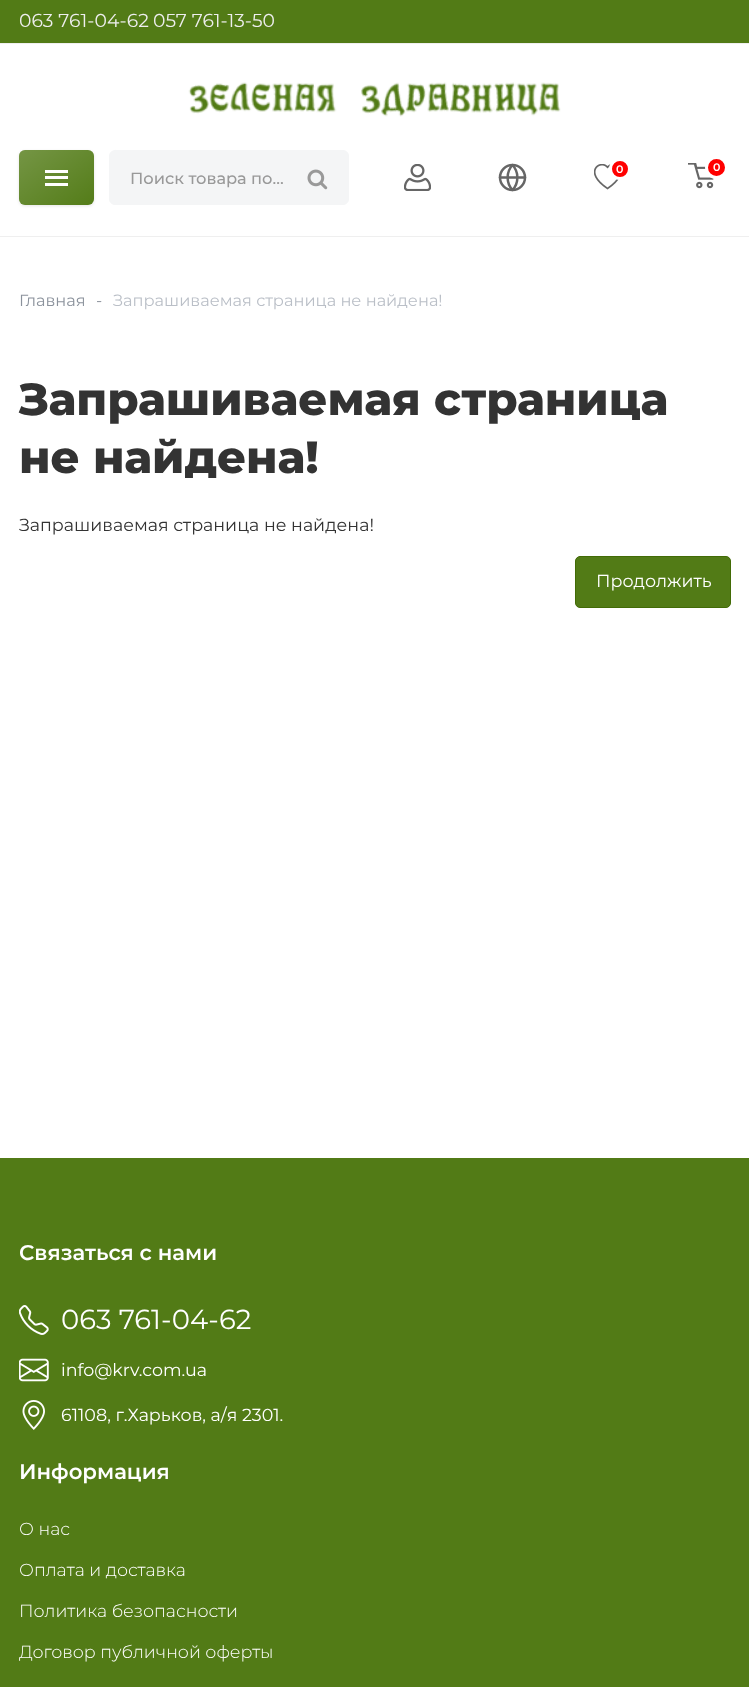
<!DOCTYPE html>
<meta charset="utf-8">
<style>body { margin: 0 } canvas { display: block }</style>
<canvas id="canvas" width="749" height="1687"></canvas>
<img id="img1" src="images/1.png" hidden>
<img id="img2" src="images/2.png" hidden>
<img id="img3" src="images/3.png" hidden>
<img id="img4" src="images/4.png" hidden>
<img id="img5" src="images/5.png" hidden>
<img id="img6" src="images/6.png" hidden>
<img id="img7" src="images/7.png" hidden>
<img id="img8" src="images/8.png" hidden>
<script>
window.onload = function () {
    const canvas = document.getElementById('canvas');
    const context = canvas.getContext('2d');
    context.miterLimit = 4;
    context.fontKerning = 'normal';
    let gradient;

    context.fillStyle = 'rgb(255, 255, 255)';
    context.fillRect(0, 0, 749, 1687);
    context.fillStyle = 'rgb(82, 123, 22)';
    context.fillRect(0, 0, 749, 43);
    context.fillStyle = 'rgb(239, 239, 239)';
    context.fillRect(0, 43, 749, 1);
    context.fillRect(0, 236, 749, 1);
    context.drawImage(document.getElementById('img1'), 188, 82, 373, 35);
    context.fillStyle = 'rgba(0, 0, 0, 0.1)';
    context.filter = 'blur(1.5px)';
    context.beginPath();
    context.roundRect(19, 151, 75, 55, 6);
    context.fill();
    context.filter = 'none';
    context.fillStyle = 'rgb(82, 123, 22)';
    context.beginPath();
    context.roundRect(19, 150, 75, 55, 6);
    context.fill();
    gradient = context.createLinearGradient(30, 142, 82, 213);
    gradient.addColorStop(0, 'rgba(255, 255, 255, 0.2)');
    gradient.addColorStop(1, 'rgba(255, 255, 255, 0.01)');
    context.fillStyle = gradient;
    context.beginPath();
    context.roundRect(19, 150, 75, 55, 6);
    context.fill();
    context.fillStyle = 'rgb(255, 255, 255)';
    context.fillRect(45, 170, 23, 3);
    context.fillRect(45, 176, 23, 3);
    context.fillRect(45, 183, 23, 3);
    context.drawImage(document.getElementById('img2'), 404, 164, 27, 27);
    context.beginPath();
    context.arc(512.5, 177.5, 12.5, 0, 2 * Math.PI);
    context.strokeStyle = 'rgb(102, 102, 102)';
    context.lineWidth = 2.5;
    context.stroke();
    context.beginPath();
    context.moveTo(500, 177.5);
    context.lineTo(525, 177.5);
    context.moveTo(512.5, 165);
    context.bezierCurveTo(519, 172, 519, 183, 512.5, 190);
    context.bezierCurveTo(506, 183, 506, 172, 512.5, 165);
    context.closePath();
    context.lineCap = 'round';
    context.lineJoin = 'round';
    context.stroke();
    context.drawImage(document.getElementById('img3'), 594, 164, 25, 26);
    context.fillStyle = 'rgb(255, 0, 0)';
    context.beginPath();
    context.arc(620, 169, 9.5, 0, 2 * Math.PI);
    context.fill();
    context.strokeStyle = 'rgb(255, 255, 255)';
    context.lineWidth = 3;
    context.stroke();
    context.drawImage(document.getElementById('img4'), 688, 163, 26, 26);
    context.beginPath();
    context.arc(716.5, 167.5, 10, 0, 2 * Math.PI);
    context.fill();
    context.stroke();
    context.fillStyle = 'rgb(244, 245, 246)';
    context.beginPath();
    context.roundRect(109.5, 150.5, 239, 54, 5.5);
    context.fill();
    context.strokeStyle = 'rgb(244, 245, 246)';
    context.lineWidth = 1;
    context.lineJoin = 'miter';
    context.stroke();
    context.drawImage(document.getElementById('img5'), 307, 169, 21, 21);
    context.fillStyle = 'rgb(82, 123, 22)';
    context.beginPath();
    context.roundRect(575.5, 556.5, 155, 51, 4.5);
    context.fill();
    context.strokeStyle = 'rgb(66, 107, 6)';
    context.stroke();
    context.fillRect(0, 1158, 749, 529);
    context.drawImage(document.getElementById('img6'), 19, 1305, 30, 30);
    context.drawImage(document.getElementById('img7'), 19, 1358, 30, 24);
    context.drawImage(document.getElementById('img8'), 22, 1400, 23, 30);
    context.font = '18.75px Montserrat';
    context.fillStyle = 'rgb(238, 238, 238)';
    context.fillText('063 761-04-62', 19, 27);
    context.fillText('057 761-13-50', 153, 27);
    context.font = '600 11px Montserrat';
    context.fillStyle = 'rgb(255, 255, 255)';
    context.fillText('0', 616, 173);
    context.fillText('0', 713, 171);
    context.font = '500 16.25px Montserrat';
    context.fillStyle = 'rgb(153, 153, 153)';
    context.fillText('Поиск товара по…', 130, 184);
    context.font = '16.25px Montserrat';
    context.fillStyle = 'rgb(139, 146, 156)';
    context.fillText('Главная', 19, 306);
    context.fillText('-', 96, 306);
    context.fillStyle = 'rgb(186, 191, 199)';
    context.fillText('Запрашиваемая страница не найдена!', 113, 306);
    context.font = '800 45px Montserrat';
    context.fillStyle = 'rgb(51, 51, 51)';
    context.fillText('Запрашиваемая страница', 19, 415);
    context.fillText('не найдена!', 19, 473);
    context.font = '17.5px Montserrat';
    context.fillText('Запрашиваемая страница не найдена!', 19, 531);
    context.fillStyle = 'rgb(255, 255, 255)';
    context.fillText('Продолжить', 596, 587);
    context.font = '600 21.25px Montserrat';
    context.fillText('Связаться с нами', 19, 1260);
    context.font = '27.5px Montserrat';
    context.fillText('063 761-04-62', 61, 1329);
    context.font = '17.5px Montserrat';
    context.fillText('info@krv.com.ua', 61, 1376);
    context.fillText('61108, г.Харьков, а/я 2301.', 61, 1421);
    context.font = '600 21.25px Montserrat';
    context.fillText('Информация', 19, 1479);
    context.font = '300 17.5px Montserrat';
    context.fillText('О нас', 19, 1535);
    context.fillText('Оплата и доставка', 19, 1576);
    context.fillText('Политика безопасности', 19, 1617);
    context.fillText('Договор публичной оферты', 19, 1658);
};
</script>
